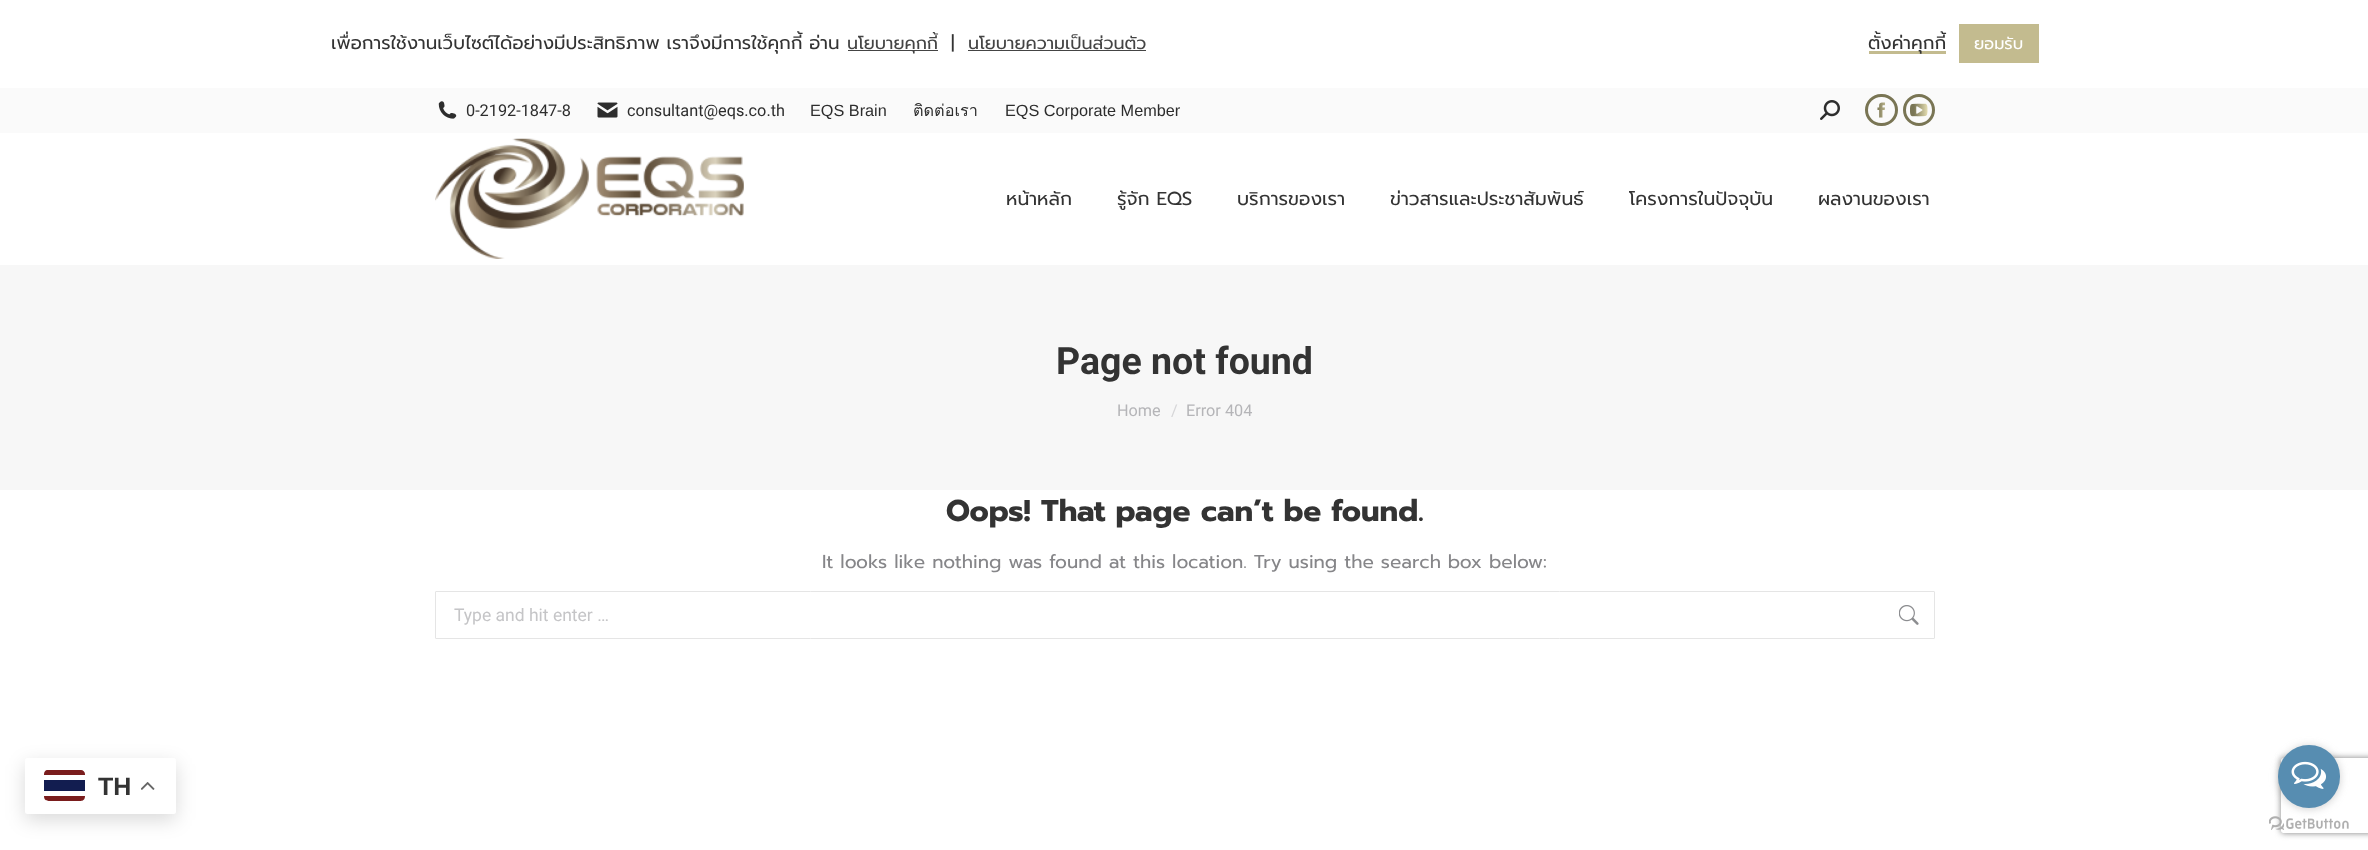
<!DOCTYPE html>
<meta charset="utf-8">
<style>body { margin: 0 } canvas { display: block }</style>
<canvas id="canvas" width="2368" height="850"></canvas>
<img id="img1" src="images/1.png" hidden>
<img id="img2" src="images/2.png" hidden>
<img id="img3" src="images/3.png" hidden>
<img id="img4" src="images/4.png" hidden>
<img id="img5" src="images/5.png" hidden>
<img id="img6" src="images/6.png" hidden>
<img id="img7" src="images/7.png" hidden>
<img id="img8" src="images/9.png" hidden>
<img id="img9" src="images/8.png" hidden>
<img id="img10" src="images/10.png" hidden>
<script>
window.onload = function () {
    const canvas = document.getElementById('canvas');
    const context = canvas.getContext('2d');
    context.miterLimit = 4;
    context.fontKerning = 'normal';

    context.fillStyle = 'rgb(255, 255, 255)';
    context.fillRect(0, 0, 2368, 850);
    context.fillStyle = 'rgb(68, 68, 68)';
    context.fillRect(848, 50, 90, 1);
    context.fillRect(968, 50, 178, 1);
    context.fillStyle = 'rgb(195, 187, 143)';
    context.fillRect(1869, 51, 77, 3);
    context.fillRect(1959, 24, 80, 39);
    context.fillStyle = 'rgb(250, 250, 250)';
    context.fillRect(0, 88, 2368, 45);
    context.drawImage(document.getElementById('img1'), 438, 101, 19, 18);
    context.drawImage(document.getElementById('img2'), 597, 102, 21, 16);
    context.drawImage(document.getElementById('img3'), 1820, 100, 20, 20);
    context.beginPath();
    context.roundRect(1866.5, 95.5, 30, 29, 14.5);
    context.strokeStyle = 'rgb(121, 117, 84)';
    context.lineWidth = 3;
    context.stroke();
    context.drawImage(document.getElementById('img4'), 1877, 102, 8, 16);
    context.beginPath();
    context.arc(1919, 110, 14.5, 0, 2 * Math.PI);
    context.stroke();
    context.drawImage(document.getElementById('img5'), 1910, 103, 18, 14);
    context.drawImage(document.getElementById('img6'), 435, 138, 309, 121);
    context.fillStyle = 'rgb(247, 247, 247)';
    context.fillRect(0, 265, 2368, 225);
    context.beginPath();
    context.roundRect(435.5, 591.5, 1499, 47, 0.5);
    context.strokeStyle = 'rgb(229, 229, 229)';
    context.lineWidth = 1;
    context.stroke();
    context.drawImage(document.getElementById('img7'), 1899, 605, 20, 20);
    context.save();
    context.beginPath();
    context.moveTo(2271, 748);
    context.lineTo(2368, 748);
    context.lineTo(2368, 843);
    context.lineTo(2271, 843);
    context.closePath();
    context.moveTo(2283.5, 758);
    context.lineTo(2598.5, 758);
    context.bezierCurveTo(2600, 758, 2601, 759, 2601, 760.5);
    context.lineTo(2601, 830.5);
    context.bezierCurveTo(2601, 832, 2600, 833, 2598.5, 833);
    context.lineTo(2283.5, 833);
    context.bezierCurveTo(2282, 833, 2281, 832, 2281, 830.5);
    context.lineTo(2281, 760.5);
    context.bezierCurveTo(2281, 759, 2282, 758, 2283.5, 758);
    context.closePath();
    context.clip('evenodd');
    context.fillStyle = 'rgb(128, 128, 128)';
    context.filter = 'blur(3px)';
    context.beginPath();
    context.roundRect(2281, 758, 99, 75, 2.5);
    context.fill();
    context.filter = 'none';
    context.restore();
    context.drawImage(document.getElementById('img8'), 2269, 816, 80, 14);
    context.fillStyle = 'rgba(136, 136, 136, 0.4)';
    context.filter = 'blur(4.5px)';
    context.beginPath();
    context.roundRect(2278, 746, 62, 63, 31);
    context.fill();
    context.filter = 'none';
    context.fillStyle = 'rgb(87, 141, 177)';
    context.beginPath();
    context.roundRect(2278, 745, 62, 63, 31);
    context.fill();
    context.drawImage(document.getElementById('img9'), 2291, 761, 35, 28);
    context.fillStyle = 'rgba(0, 0, 0, 0.15)';
    context.filter = 'blur(9.5px)';
    context.beginPath();
    context.roundRect(25, 764, 151, 56, 2.5);
    context.fill();
    context.filter = 'none';
    context.fillStyle = 'rgb(255, 255, 255)';
    context.beginPath();
    context.roundRect(25, 758, 151, 56, 2.5);
    context.fill();
    context.fillStyle = 'rgb(18, 29, 80)';
    context.fillRect(44, 780, 41, 11);
    context.save();
    context.beginPath();
    context.rect(44, 770, 41, 31);
    context.clip();
    context.fillStyle = 'rgb(122, 29, 29)';
    context.beginPath();
    context.moveTo(48, 770);
    context.bezierCurveTo(45, 770, 44, 772, 44, 775);
    context.lineTo(85, 775);
    context.lineTo(85, 774);
    context.bezierCurveTo(85, 772, 83, 770, 81, 770);
    context.closePath();
    context.moveTo(44, 796);
    context.bezierCurveTo(44, 802, 49, 801, 54, 801);
    context.lineTo(76, 801);
    context.bezierCurveTo(80, 801, 85, 802, 85, 796);
    context.closePath();
    context.fill('evenodd');
    context.restore();
    context.drawImage(document.getElementById('img10'), 141, 782, 14, 8);
    context.font = '18.3px Prompt';
    context.fillStyle = 'rgb(51, 51, 51)';
    context.fillText('เพื่อการใช้งานเว็บไซต์ได้อย่างมีประสิทธิภาพ เราจึงมีการใช้คุกกี้ อ่าน', 331, 49);
    context.font = '17.5px Prompt';
    context.fillStyle = 'rgb(68, 68, 68)';
    context.fillText('นโยบายคุกกี้', 847, 49);
    context.font = '18.3px Prompt';
    context.fillStyle = 'rgb(51, 51, 51)';
    context.fillText('|', 951, 49);
    context.font = '17.5px Prompt';
    context.fillStyle = 'rgb(68, 68, 68)';
    context.fillText('นโยบายความเป็นส่วนตัว', 968, 49);
    context.font = '18.3px Prompt';
    context.fillStyle = 'rgb(51, 51, 51)';
    context.fillText('ตั้งค่าคุกกี้', 1868, 49);
    context.font = '16.25px Prompt';
    context.fillStyle = 'rgb(255, 255, 255)';
    context.fillText('ยอมรับ', 1974, 49);
    context.font = '16.25px Roboto';
    context.fillStyle = 'rgb(45, 45, 45)';
    context.fillText('0-2192-1847-8', 466, 116);
    context.fillText('consultant@eqs.co.th', 627, 116);
    context.font = '16.25px Liberation Sans';
    context.fillText('EQS Brain', 810, 116);
    context.font = '16.25px Loma';
    context.fillText('ติดต่อเรา', 913, 116);
    context.font = '16.25px Liberation Sans';
    context.fillText('EQS Corporate Member', 1005, 116);
    context.font = '18.75px Prompt';
    context.fillStyle = 'rgb(51, 51, 51)';
    context.fillText('หน้าหลัก', 1006, 205);
    context.fillText('รู้จัก EQS', 1117, 205);
    context.fillText('บริการของเรา', 1237, 205);
    context.fillText('ข่าวสารและประชาสัมพันธ์', 1390, 205);
    context.fillText('โครงการในปัจจุบัน', 1629, 205);
    context.fillText('ผลงานของเรา', 1818, 205);
    context.font = 'bold 37.5px Roboto';
    context.fillText('Page not found', 1056, 374);
    context.font = '16.25px Roboto';
    context.fillStyle = 'rgb(181, 181, 184)';
    context.fillText('Home', 1117, 416);
    context.fillStyle = 'rgb(214, 214, 216)';
    context.fillText('/', 1171, 416);
    context.fillStyle = 'rgb(181, 181, 184)';
    context.fillText('Error 404', 1186, 416);
    context.font = 'bold 30px Prompt';
    context.fillStyle = 'rgb(51, 51, 51)';
    context.fillText('Oops! That page can’t be found.', 946, 521);
    context.font = '18.75px Prompt';
    context.fillStyle = 'rgb(134, 134, 137)';
    context.fillText('It looks like nothing was found at this location. Try using the search box below:', 822, 568);
    context.font = '17.5px Roboto';
    context.fillStyle = 'rgb(197, 197, 199)';
    context.fillText('Type and hit enter …', 454, 621);
    context.font = 'bold 25px Liberation Sans';
    context.fillStyle = 'rgb(51, 51, 51)';
    context.fillText('TH', 98, 795);
};
</script>
